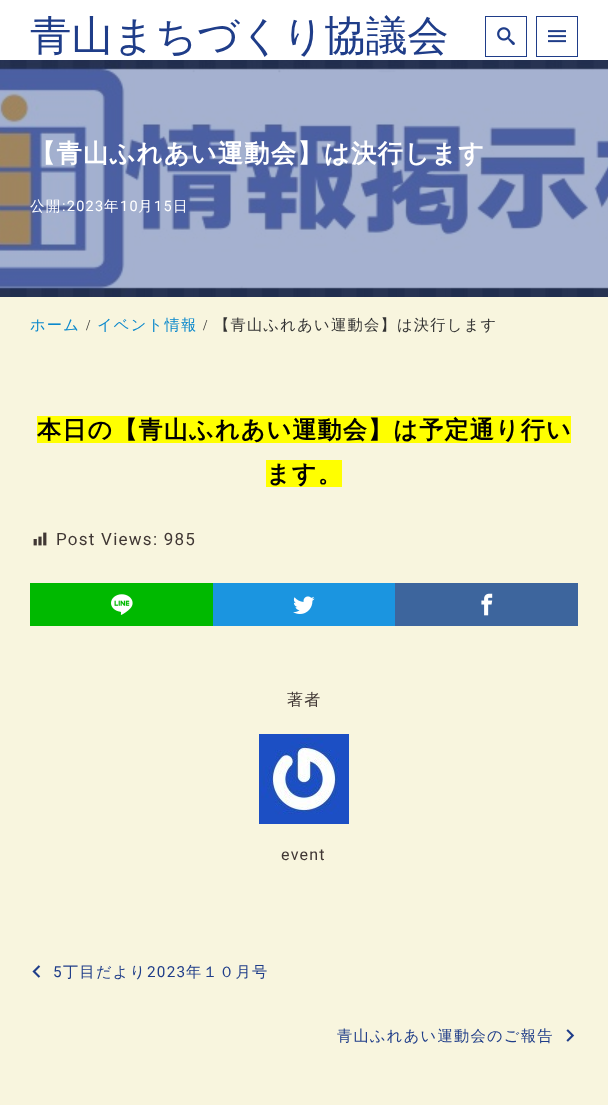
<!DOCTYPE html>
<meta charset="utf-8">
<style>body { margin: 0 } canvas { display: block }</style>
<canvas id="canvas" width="608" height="1105"></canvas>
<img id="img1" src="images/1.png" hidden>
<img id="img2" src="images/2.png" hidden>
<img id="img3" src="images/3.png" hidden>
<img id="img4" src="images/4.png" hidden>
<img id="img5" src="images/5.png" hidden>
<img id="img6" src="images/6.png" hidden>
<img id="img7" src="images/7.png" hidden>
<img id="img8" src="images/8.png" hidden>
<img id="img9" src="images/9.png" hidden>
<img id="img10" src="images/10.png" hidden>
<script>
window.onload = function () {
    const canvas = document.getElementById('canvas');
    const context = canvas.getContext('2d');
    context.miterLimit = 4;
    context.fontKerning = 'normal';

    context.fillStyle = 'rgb(248, 245, 222)';
    context.fillRect(0, 0, 608, 1105);
    context.fillStyle = 'rgb(255, 255, 255)';
    context.fillRect(0, 0, 608, 60);
    context.strokeStyle = 'rgb(31, 61, 137)';
    context.strokeRect(485.5, 16.5, 41, 40);
    context.drawImage(document.getElementById('img1'), 497, 27, 18, 18);
    context.strokeRect(536.5, 16.5, 41, 40);
    context.drawImage(document.getElementById('img2'), 548, 30, 18, 13);
    context.drawImage(document.getElementById('img3'), 0, 60, 608, 237);
    context.fillStyle = 'rgb(255, 255, 0)';
    context.fillRect(37, 416, 534, 27);
    context.fillRect(266, 460, 76, 27);
    context.drawImage(document.getElementById('img4'), 33, 532, 14, 14);
    context.fillStyle = 'rgb(0, 185, 0)';
    context.fillRect(30, 583, 183, 43);
    context.drawImage(document.getElementById('img5'), 111, 594, 22, 21);
    context.fillStyle = 'rgb(27, 149, 224)';
    context.fillRect(213, 583, 182, 43);
    context.drawImage(document.getElementById('img6'), 293, 596, 22, 18);
    context.fillStyle = 'rgb(61, 101, 157)';
    context.fillRect(395, 583, 183, 43);
    context.drawImage(document.getElementById('img7'), 481, 593, 12, 23);
    context.drawImage(document.getElementById('img8'), 259, 734, 90, 90);
    context.drawImage(document.getElementById('img9'), 32, 965, 9, 13);
    context.drawImage(document.getElementById('img10'), 566, 1029, 9, 13);
    context.font = '500 41.4px WenQuanYi Zen Hei';
    context.fillStyle = 'rgb(31, 61, 137)';
    context.fillText('青山まちづくり協議会', 30, 50);
    context.letterSpacing = '1.25px';
    context.font = 'bold 25.25px WenQuanYi Zen Hei';
    context.fillStyle = 'rgb(255, 255, 255)';
    context.fillText('【青山ふれあい運動会】は決行します', 30, 162);
    context.font = '500 14.5px WenQuanYi Zen Hei';
    context.fillText('公開', 30, 211);
    context.font = '14.5px Roboto';
    context.fillText(':2023', 62, 211);
    context.font = '500 14.5px WenQuanYi Zen Hei';
    context.fillText('年', 104, 211);
    context.font = '14.5px Roboto';
    context.fillText('10', 120, 211);
    context.font = '500 14.5px WenQuanYi Zen Hei';
    context.fillText('月', 138, 211);
    context.font = '14.5px Roboto';
    context.fillText('15', 154, 211);
    context.font = '500 14.5px WenQuanYi Zen Hei';
    context.fillText('日', 173, 211);
    context.font = '500 15.25px WenQuanYi Zen Hei';
    context.fillStyle = 'rgb(10, 136, 204)';
    context.fillText('ホーム', 30, 330);
    context.font = '15.25px Liberation Serif';
    context.fillStyle = 'rgb(51, 51, 51)';
    context.fillText('/', 86, 330);
    context.font = '500 15.25px WenQuanYi Zen Hei';
    context.fillStyle = 'rgb(10, 136, 204)';
    context.fillText('イベント情報', 97, 330);
    context.font = '15.25px Liberation Serif';
    context.fillStyle = 'rgb(51, 51, 51)';
    context.fillText('/', 203, 330);
    context.font = '500 15.25px WenQuanYi Zen Hei';
    context.fillText('【青山ふれあい運動会】は決行します', 214, 330);
    context.font = 'bold 24px WenQuanYi Zen Hei';
    context.fillStyle = 'rgb(0, 0, 0)';
    context.fillText('本日の【青山ふれあい運動会】は予定通り行い', 37, 438);
    context.fillText('ます。', 266, 482);
    context.font = '17px Roboto';
    context.fillStyle = 'rgb(64, 55, 52)';
    context.fillText('Post Views: 985', 56, 545);
    context.font = '500 16px WenQuanYi Zen Hei';
    context.fillText('著者', 287, 705);
    context.font = '16px Roboto';
    context.fillText('event', 281, 860);
    context.font = '15.25px Roboto';
    context.fillStyle = 'rgb(31, 61, 137)';
    context.fillText('5', 53, 977);
    context.font = '500 15.25px WenQuanYi Zen Hei';
    context.fillText('丁目だより', 63, 977);
    context.font = '15.25px Roboto';
    context.fillText('2023', 147, 977);
    context.font = '500 15.25px WenQuanYi Zen Hei';
    context.fillText('年１０月号', 186, 977);
    context.fillText('青山ふれあい運動会のご報告', 337, 1041);
};
</script>
